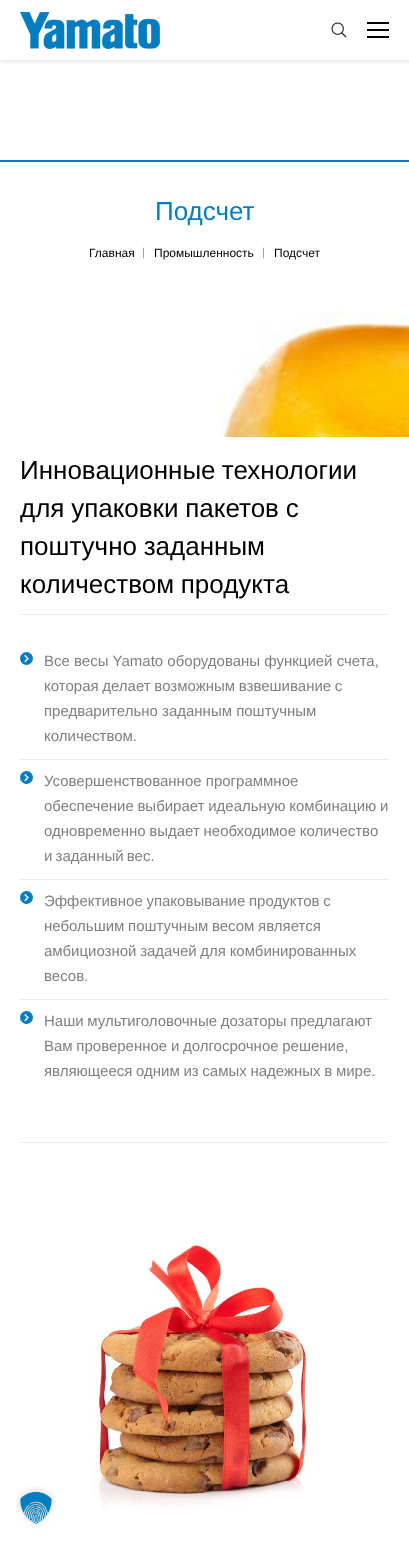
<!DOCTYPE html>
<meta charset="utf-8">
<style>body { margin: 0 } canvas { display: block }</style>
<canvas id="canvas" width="409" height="1544"></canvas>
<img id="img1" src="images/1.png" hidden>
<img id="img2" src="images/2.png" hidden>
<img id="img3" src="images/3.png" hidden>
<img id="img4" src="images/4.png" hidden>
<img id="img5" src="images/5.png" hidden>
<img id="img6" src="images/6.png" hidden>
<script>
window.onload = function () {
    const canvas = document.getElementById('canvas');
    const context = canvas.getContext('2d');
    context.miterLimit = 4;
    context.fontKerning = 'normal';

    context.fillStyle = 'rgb(255, 255, 255)';
    context.fillRect(0, 0, 409, 1544);
    context.save();
    context.beginPath();
    context.rect(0, 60, 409, 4);
    context.clip();
    context.fillStyle = 'rgba(0, 0, 0, 0.1)';
    context.filter = 'blur(2px)';
    context.beginPath();
    context.rect(0, 0, 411, 62);
    context.fill();
    context.filter = 'none';
    context.restore();
    context.drawImage(document.getElementById('img1'), 20, 12, 140, 37);
    context.drawImage(document.getElementById('img2'), 331, 22, 16, 16);
    context.fillStyle = 'rgb(0, 0, 0)';
    context.fillRect(367, 29, 22, 2);
    context.fillRect(367, 22, 22, 2);
    context.fillRect(367, 36, 22, 2);
    context.fillStyle = 'rgb(3, 125, 192)';
    context.fillRect(0, 160, 409, 2);
    context.drawImage(document.getElementById('img3'), 218, 311, 191, 126);
    context.fillStyle = 'rgb(235, 235, 235)';
    context.fillRect(20, 614, 369, 1);
    context.fillStyle = 'rgb(3, 125, 192)';
    context.beginPath();
    context.arc(26.5, 658.5, 6.5, 0, 2 * Math.PI);
    context.fill();
    context.drawImage(document.getElementById('img4'), 24, 654, 5, 9);
    context.fillStyle = 'rgb(236, 236, 236)';
    context.fillRect(20, 759, 369, 1);
    context.fillStyle = 'rgb(3, 125, 192)';
    context.beginPath();
    context.arc(26.5, 777.5, 6.5, 0, 2 * Math.PI);
    context.fill();
    context.drawImage(document.getElementById('img4'), 24, 773, 5, 9);
    context.fillStyle = 'rgb(236, 236, 236)';
    context.fillRect(20, 879, 369, 1);
    context.fillStyle = 'rgb(3, 125, 192)';
    context.beginPath();
    context.arc(26.5, 897.5, 6.5, 0, 2 * Math.PI);
    context.fill();
    context.drawImage(document.getElementById('img4'), 24, 893, 5, 9);
    context.fillStyle = 'rgb(236, 236, 236)';
    context.fillRect(20, 999, 369, 1);
    context.fillStyle = 'rgb(3, 125, 192)';
    context.beginPath();
    context.arc(26.5, 1017.5, 6.5, 0, 2 * Math.PI);
    context.fill();
    context.drawImage(document.getElementById('img4'), 24, 1013, 5, 9);
    context.fillStyle = 'rgb(235, 235, 235)';
    context.fillRect(20, 1142, 369, 1);
    context.drawImage(document.getElementById('img5'), 93, 1239, 219, 271);
    context.drawImage(document.getElementById('img6'), 16, 1487, 40, 39);
    context.font = '26px Liberation Sans';
    context.fillStyle = 'rgb(3, 125, 192)';
    context.fillText('Подсчет', 155, 220);
    context.font = '12px Liberation Sans';
    context.fillStyle = 'rgb(0, 0, 0)';
    context.fillText('Главная', 89, 257);
    context.font = '12px Raleway';
    context.fillStyle = 'rgb(127, 127, 127)';
    context.fillText('|', 142, 257);
    context.font = '12px Liberation Sans';
    context.fillStyle = 'rgb(0, 0, 0)';
    context.fillText('Промышленность', 154, 257);
    context.font = '12px Raleway';
    context.fillStyle = 'rgb(127, 127, 127)';
    context.fillText('|', 262, 257);
    context.font = '12px Liberation Sans';
    context.fillStyle = 'rgb(0, 0, 0)';
    context.fillText('Подсчет', 274, 257);
    context.wordSpacing = '-1px';
    context.font = '26px Liberation Sans';
    context.fillText('Инновационные технологии', 20, 479);
    context.wordSpacing = '-0.5px';
    context.fillText('для упаковки пакетов с', 20, 517);
    context.fillText('поштучно заданным', 20, 555);
    context.fillText('количеством продукта', 20, 593);
    context.wordSpacing = '0px';
    context.font = '15px Liberation Sans';
    context.fillStyle = 'rgb(127, 127, 127)';
    context.fillText('Все весы Yamato оборудованы функцией счета,', 44, 666);
    context.wordSpacing = '-0.5px';
    context.fillText('которая делает возможным взвешивание с', 44, 691);
    context.wordSpacing = '0px';
    context.fillText('предварительно заданным поштучным', 44, 716);
    context.fillText('количеством.', 44, 741);
    context.fillText('Усовершенствованное программное', 44, 786);
    context.wordSpacing = '-0.5px';
    context.fillText('обеспечение выбирает идеальную комбинацию и', 44, 811);
    context.fillText('одновременно выдает необходимое количество', 44, 836);
    context.wordSpacing = '-1px';
    context.fillText('и заданный вес.', 44, 861);
    context.wordSpacing = '-0.5px';
    context.fillText('Эффективное упаковывание продуктов с', 44, 906);
    context.fillText('небольшим поштучным весом является', 44, 931);
    context.fillText('амбициозной задачей для комбинированных', 44, 956);
    context.wordSpacing = '0px';
    context.fillText('весов.', 44, 981);
    context.wordSpacing = '-0.5px';
    context.fillText('Наши мультиголовочные дозаторы предлагают', 44, 1026);
    context.fillText('Вам проверенное и долгосрочное решение,', 44, 1051);
    context.fillText('являющееся одним из самых надежных в мире.', 44, 1076);
};
</script>
